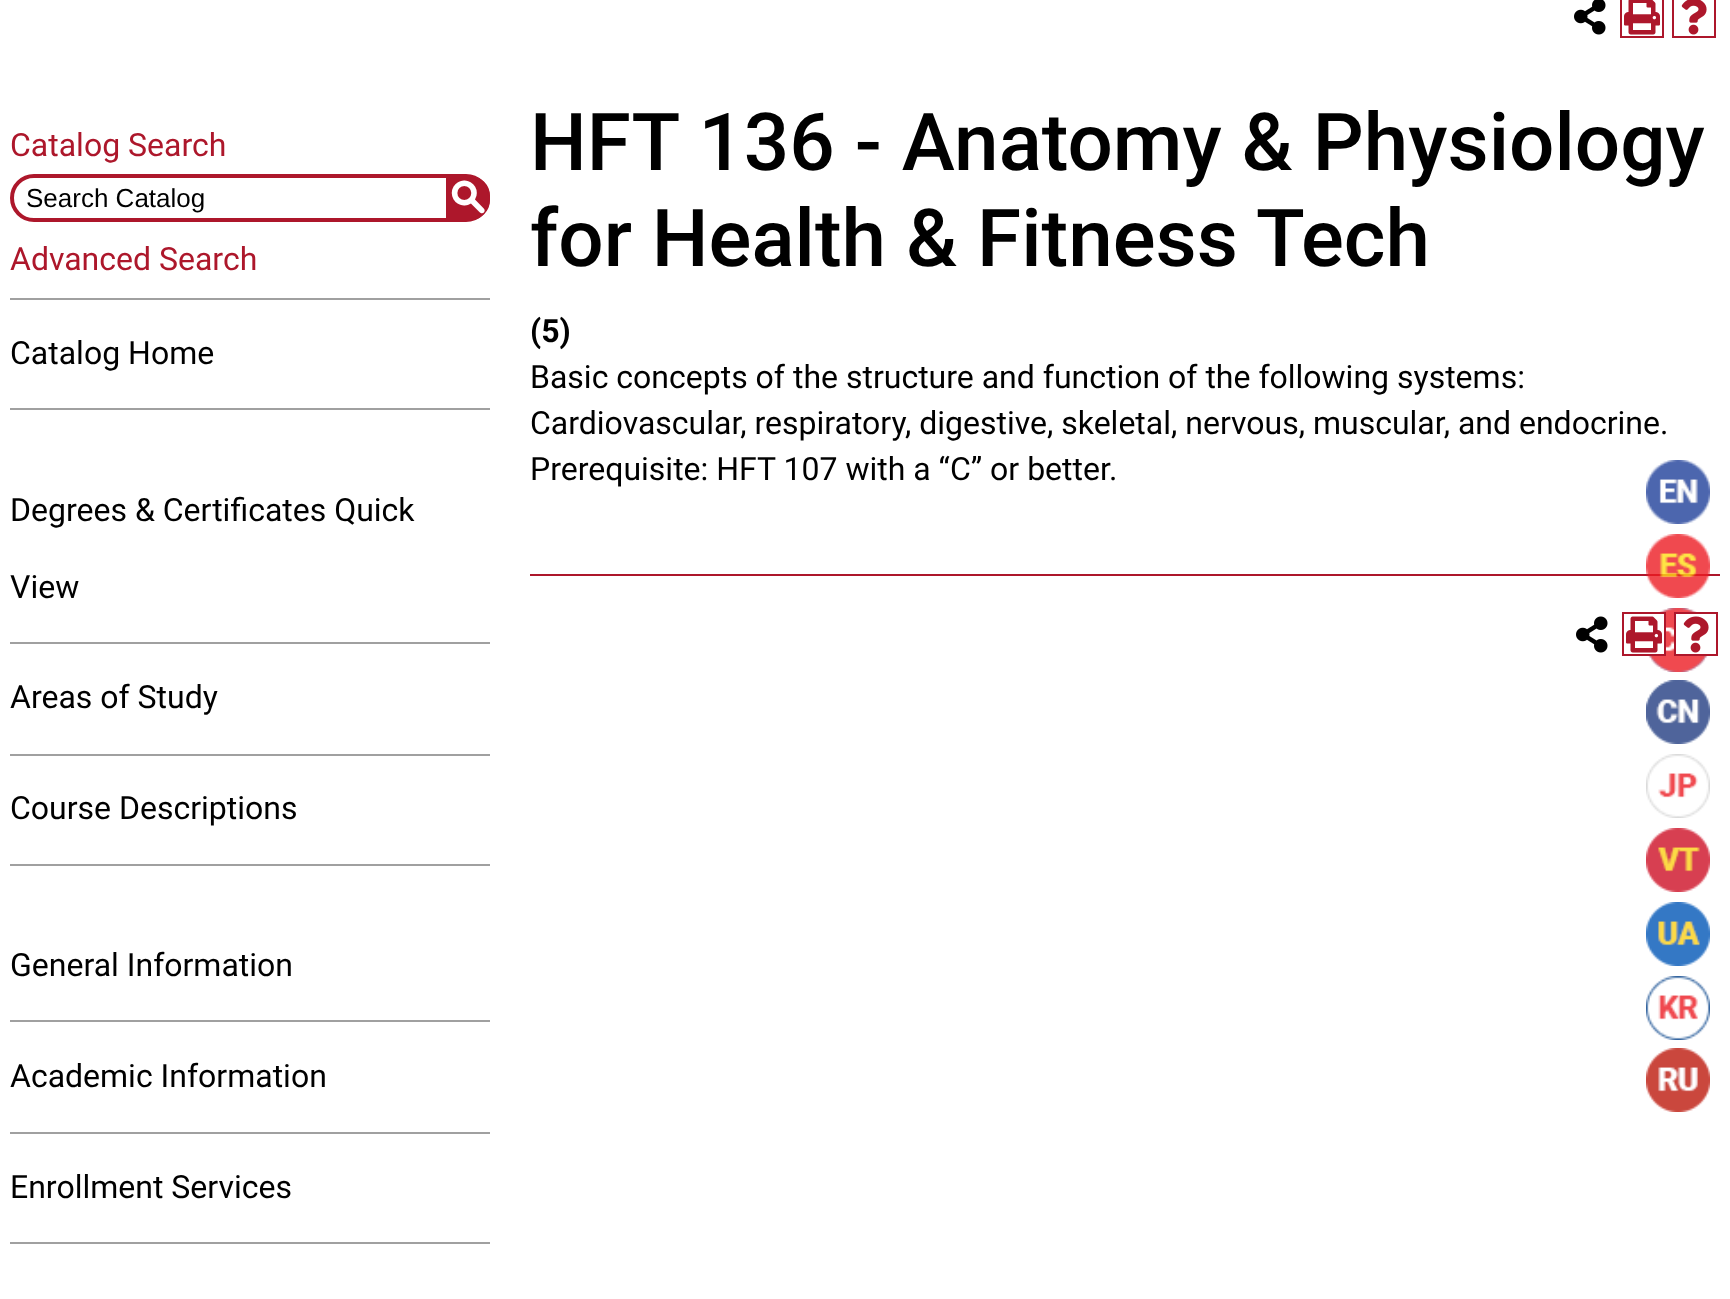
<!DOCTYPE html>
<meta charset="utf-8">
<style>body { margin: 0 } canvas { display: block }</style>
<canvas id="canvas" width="1730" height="1299"></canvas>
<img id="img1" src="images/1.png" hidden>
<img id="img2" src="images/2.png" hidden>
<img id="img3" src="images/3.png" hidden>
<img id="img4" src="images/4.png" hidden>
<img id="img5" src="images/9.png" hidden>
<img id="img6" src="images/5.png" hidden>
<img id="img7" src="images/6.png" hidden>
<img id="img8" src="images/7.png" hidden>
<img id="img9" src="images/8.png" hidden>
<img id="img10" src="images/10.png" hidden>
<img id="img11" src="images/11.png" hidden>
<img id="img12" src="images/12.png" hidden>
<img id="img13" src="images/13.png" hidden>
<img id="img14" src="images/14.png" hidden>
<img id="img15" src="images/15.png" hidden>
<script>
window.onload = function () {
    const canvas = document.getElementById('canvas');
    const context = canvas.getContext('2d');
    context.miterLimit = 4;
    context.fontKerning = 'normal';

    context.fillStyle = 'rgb(255, 255, 255)';
    context.fillRect(0, 0, 1730, 1299);
    context.beginPath();
    context.roundRect(12, 176, 476, 44, 22);
    context.strokeStyle = 'rgb(173, 23, 43)';
    context.lineWidth = 4;
    context.stroke();
    context.fillStyle = 'rgb(173, 23, 43)';
    context.beginPath();
    context.roundRect(447, 177, 42, 42, [0, 19, 19, 0]);
    context.fill();
    context.lineWidth = 2;
    context.stroke();
    context.fillStyle = 'rgb(160, 160, 160)';
    context.fillRect(10, 298, 480, 2);
    context.fillRect(10, 408, 480, 2);
    context.fillRect(10, 642, 480, 2);
    context.fillRect(10, 754, 480, 2);
    context.fillRect(10, 864, 480, 2);
    context.fillRect(10, 1020, 480, 2);
    context.fillRect(10, 1132, 480, 2);
    context.fillRect(10, 1242, 480, 2);
    context.drawImage(document.getElementById('img1'), 1574, 0, 32, 35);
    context.strokeRect(1621, -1, 42, 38);
    context.drawImage(document.getElementById('img2'), 1624, 0, 36, 35);
    context.strokeRect(1673, -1, 42, 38);
    context.drawImage(document.getElementById('img3'), 1681, 0, 26, 35);
    context.fillStyle = 'rgb(173, 23, 43)';
    context.fillRect(530, 574, 1190, 2);
    context.drawImage(document.getElementById('img4'), 1576, 616, 32, 37);
    context.drawImage(document.getElementById('img5'), 1648, 608, 60, 64);
    context.fillStyle = 'rgb(255, 255, 255)';
    context.fillRect(1648, 614, 16, 40);
    context.strokeRect(1623, 613, 42, 42);
    context.drawImage(document.getElementById('img6'), 1626, 616, 36, 37);
    context.fillRect(1676, 614, 32, 40);
    context.strokeRect(1675, 613, 42, 42);
    context.drawImage(document.getElementById('img7'), 1683, 616, 26, 37);
    context.drawImage(document.getElementById('img8'), 1646, 460, 64, 64);
    context.drawImage(document.getElementById('img9'), 1646, 534, 64, 64);
    context.drawImage(document.getElementById('img10'), 1646, 680, 64, 64);
    context.drawImage(document.getElementById('img11'), 1646, 754, 64, 64);
    context.drawImage(document.getElementById('img12'), 1646, 828, 64, 64);
    context.drawImage(document.getElementById('img13'), 1646, 902, 64, 64);
    context.drawImage(document.getElementById('img14'), 1646, 976, 64, 64);
    context.drawImage(document.getElementById('img15'), 1646, 1048, 64, 64);
    context.font = '32px Roboto';
    context.fillStyle = 'rgb(173, 23, 43)';
    context.fillText('Catalog Search', 10, 156);
    context.font = '26px Liberation Sans';
    context.fillStyle = 'rgb(0, 0, 0)';
    context.fillText('Search Catalog', 26, 207);
    context.font = '500 36px "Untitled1"';
    context.fillStyle = 'rgb(255, 255, 255)';
    context.fillText('S', 450, 208);
    context.font = '32px Roboto';
    context.fillStyle = 'rgb(173, 23, 43)';
    context.fillText('Advanced Search', 10, 270);
    context.fillStyle = 'rgb(0, 0, 0)';
    context.fillText('Catalog Home', 10, 364);
    context.fillText('Degrees & Certificates Quick', 10, 521);
    context.fillText('View', 10, 598);
    context.fillText('Areas of Study', 10, 708);
    context.fillText('Course Descriptions', 10, 819);
    context.fillText('General Information', 10, 976);
    context.fillText('Academic Information', 10, 1087);
    context.fillText('Enrollment Services', 10, 1198);
    context.font = '500 80px Roboto';
    context.fillText('HFT 136 - Anatomy & Physiology', 530, 170);
    context.fillText('for Health & Fitness Tech', 530, 266);
    context.font = 'bold 32px Roboto';
    context.fillText('(5)', 530, 342);
    context.font = '32px Roboto';
    context.fillText('Basic concepts of the structure and function of the following systems:', 530, 388);
    context.fillText('Cardiovascular, respiratory, digestive, skeletal, nervous, muscular, and endocrine.', 530, 434);
    context.fillText('Prerequisite: HFT 107 with a “C” or better.', 530, 480);
};
</script>
